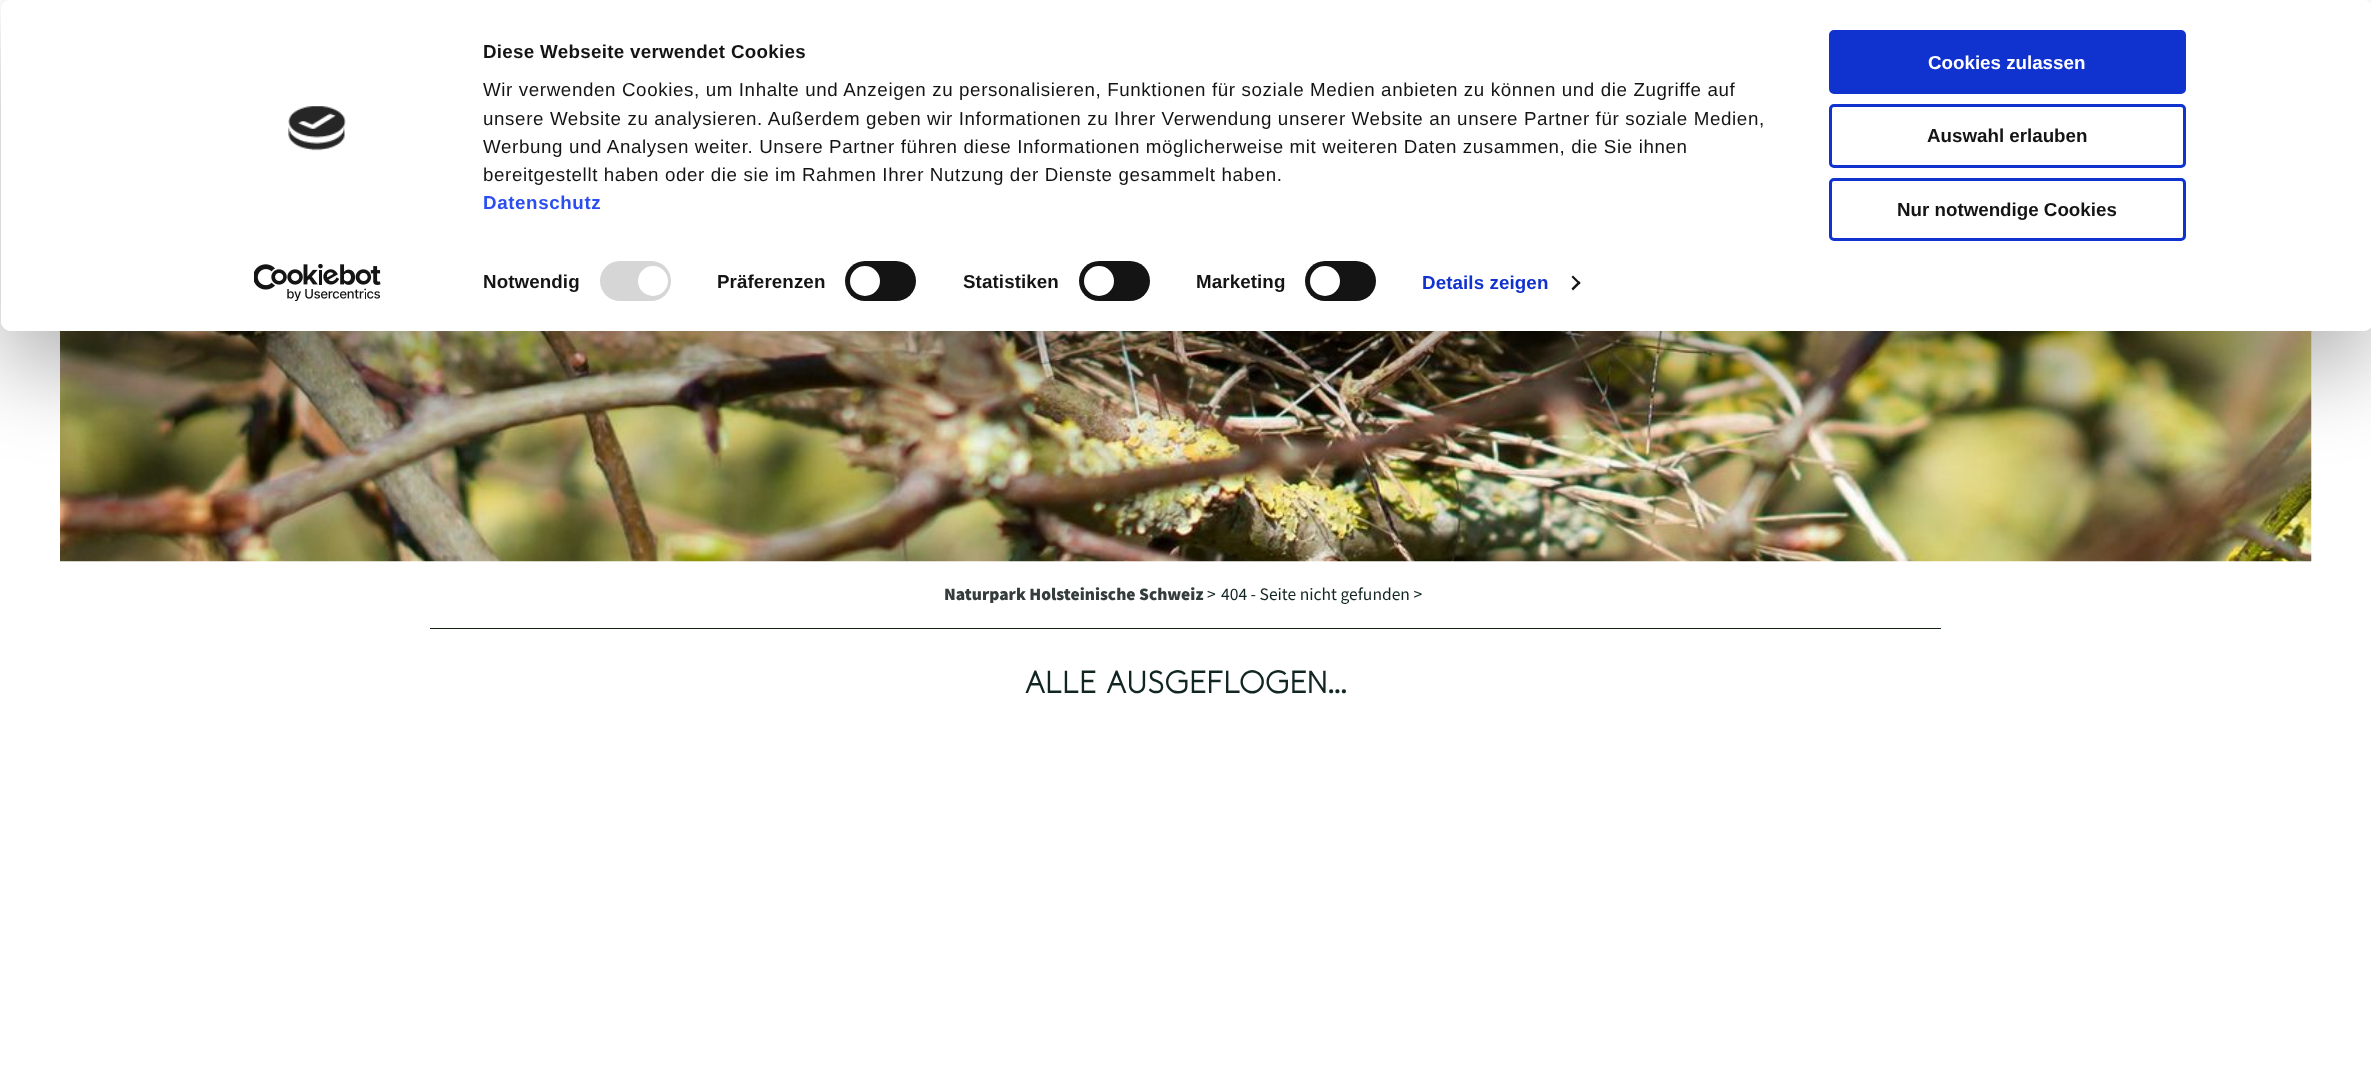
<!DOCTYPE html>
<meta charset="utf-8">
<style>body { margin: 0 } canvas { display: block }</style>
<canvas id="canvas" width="2371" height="1083"></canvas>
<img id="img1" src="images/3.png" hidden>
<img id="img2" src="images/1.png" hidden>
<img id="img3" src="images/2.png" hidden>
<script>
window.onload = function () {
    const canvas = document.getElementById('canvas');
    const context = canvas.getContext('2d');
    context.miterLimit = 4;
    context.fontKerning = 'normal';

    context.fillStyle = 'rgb(255, 255, 255)';
    context.fillRect(0, 0, 2371, 1083);
    context.drawImage(document.getElementById('img1'), 60, 331, 2252, 231);
    context.save();
    context.beginPath();
    context.moveTo(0, 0);
    context.lineTo(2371, 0);
    context.lineTo(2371, 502);
    context.lineTo(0, 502);
    context.closePath();
    context.moveTo(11, 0);
    context.lineTo(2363, 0);
    context.bezierCurveTo(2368.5, 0, 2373, 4.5, 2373, 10);
    context.lineTo(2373, 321);
    context.bezierCurveTo(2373, 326.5, 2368.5, 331, 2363, 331);
    context.lineTo(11, 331);
    context.bezierCurveTo(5.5, 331, 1, 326.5, 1, 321);
    context.lineTo(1, 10);
    context.bezierCurveTo(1, 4.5, 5.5, 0, 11, 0);
    context.closePath();
    context.clip('evenodd');
    context.fillStyle = 'rgba(0, 0, 0, 0.3)';
    context.filter = 'blur(44px)';
    context.beginPath();
    context.roundRect(1, 38, 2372, 331, 10);
    context.fill();
    context.filter = 'none';
    context.restore();
    context.beginPath();
    context.roundRect(1, 0, 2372, 331, 10);
    context.fill();
    context.drawImage(document.getElementById('img2'), 288, 106, 58, 45);
    context.drawImage(document.getElementById('img3'), 254, 264, 127, 37);
    context.fillStyle = 'rgb(214, 214, 214)';
    context.beginPath();
    context.roundRect(600, 261, 71, 40, 20);
    context.fill();
    context.fillStyle = 'rgb(255, 255, 255)';
    context.beginPath();
    context.arc(653, 281, 15, 0, 2 * Math.PI);
    context.fill();
    context.fillStyle = 'rgb(20, 20, 20)';
    context.beginPath();
    context.roundRect(845, 261, 71, 40, 20);
    context.fill();
    context.fillStyle = 'rgb(255, 255, 255)';
    context.beginPath();
    context.arc(865, 281, 15, 0, 2 * Math.PI);
    context.fill();
    context.fillStyle = 'rgb(20, 20, 20)';
    context.beginPath();
    context.roundRect(1079, 261, 71, 40, 20);
    context.fill();
    context.fillStyle = 'rgb(255, 255, 255)';
    context.beginPath();
    context.arc(1099, 281, 15, 0, 2 * Math.PI);
    context.fill();
    context.fillStyle = 'rgb(20, 20, 20)';
    context.beginPath();
    context.roundRect(1305, 261, 71, 40, 20);
    context.fill();
    context.fillStyle = 'rgb(255, 255, 255)';
    context.beginPath();
    context.arc(1325, 281, 15, 0, 2 * Math.PI);
    context.fill();
    context.fillStyle = 'rgb(20, 20, 20)';
    context.beginPath();
    context.moveTo(1573, 275.5);
    context.lineTo(1580.5, 283);
    context.lineTo(1579, 284.5);
    context.lineTo(1571.5, 277);
    context.closePath();
    context.fill();
    context.beginPath();
    context.moveTo(1579, 281);
    context.lineTo(1580.5, 283);
    context.lineTo(1573, 290.5);
    context.lineTo(1571.5, 288.5);
    context.closePath();
    context.fill();
    context.fillStyle = 'rgb(16, 50, 207)';
    context.beginPath();
    context.roundRect(1830.5, 31.5, 354, 61, 3.5);
    context.fill();
    context.strokeStyle = 'rgb(16, 50, 207)';
    context.lineWidth = 3;
    context.stroke();
    context.beginPath();
    context.roundRect(1830.5, 105.5, 354, 61, 3.5);
    context.stroke();
    context.beginPath();
    context.roundRect(1830.5, 179.5, 354, 60, 3.5);
    context.stroke();
    context.fillStyle = 'rgb(17, 35, 21)';
    context.fillRect(430, 628, 1511, 1);
    context.letterSpacing = '0.3px';
    context.font = 'bold 18.75px Liberation Sans';
    context.fillStyle = 'rgb(20, 20, 20)';
    context.fillText('Diese Webseite verwendet Cookies', 483, 58);
    context.letterSpacing = '0.62px';
    context.font = '18.75px Liberation Sans';
    context.fillText('Wir verwenden Cookies, um Inhalte und Anzeigen zu personalisieren, Funktionen für soziale Medien anbieten zu können und die Zugriffe auf', 483, 96);
    context.fillText('unsere Website zu analysieren. Außerdem geben wir Informationen zu Ihrer Verwendung unserer Website an unsere Partner für soziale Medien,', 483, 125);
    context.fillText('Werbung und Analysen weiter. Unsere Partner führen diese Informationen möglicherweise mit weiteren Daten zusammen, die Sie ihnen', 483, 153);
    context.fillText('bereitgestellt haben oder die sie im Rahmen Ihrer Nutzung der Dienste gesammelt haben.', 483, 181);
    context.font = 'bold 18.75px Liberation Sans';
    context.fillStyle = 'rgb(42, 78, 239)';
    context.fillText('Datenschutz', 483, 209);
    context.letterSpacing = '0.1px';
    context.fillStyle = 'rgb(20, 20, 20)';
    context.fillText('Notwendig', 483, 288);
    context.fillText('Präferenzen', 717, 288);
    context.fillText('Statistiken', 963, 288);
    context.fillText('Marketing', 1196, 288);
    context.fillStyle = 'rgb(16, 50, 207)';
    context.fillText('Details zeigen', 1422, 289);
    context.letterSpacing = '0px';
    context.fillStyle = 'rgb(255, 255, 255)';
    context.fillText('Cookies zulassen', 1928, 69);
    context.fillStyle = 'rgb(20, 20, 20)';
    context.fillText('Auswahl erlauben', 1927, 142);
    context.fillText('Nur notwendige Cookies', 1897, 216);
    context.font = '900 17.5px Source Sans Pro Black';
    context.fillStyle = 'rgb(52, 60, 60)';
    context.fillText('Naturpark Holsteinische Schweiz', 944, 600);
    context.font = '17.5px Source Sans Pro';
    context.fillStyle = 'rgb(17, 37, 34)';
    context.fillText('>', 1207, 600);
    context.fillText('404 - Seite nicht gefunden >', 1221, 600);
    context.font = '30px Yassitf';
    context.fillText('ALLE AUSGEFLOGEN...', 1025, 693);
};
</script>
